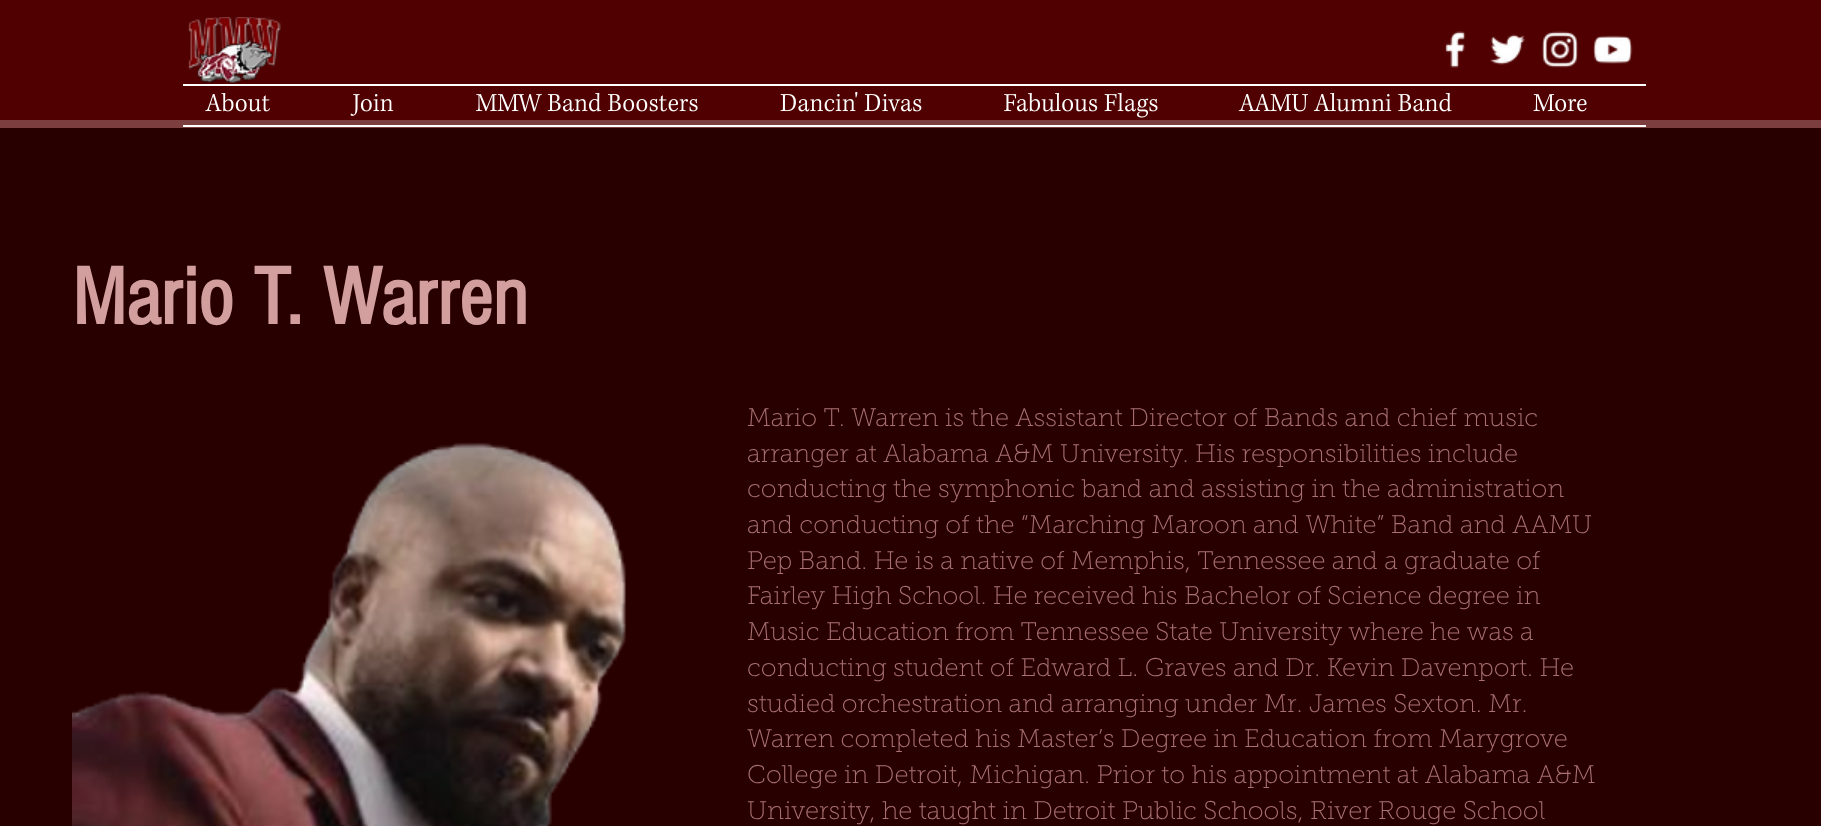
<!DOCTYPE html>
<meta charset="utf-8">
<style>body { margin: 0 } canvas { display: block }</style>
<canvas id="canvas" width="1821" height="826"></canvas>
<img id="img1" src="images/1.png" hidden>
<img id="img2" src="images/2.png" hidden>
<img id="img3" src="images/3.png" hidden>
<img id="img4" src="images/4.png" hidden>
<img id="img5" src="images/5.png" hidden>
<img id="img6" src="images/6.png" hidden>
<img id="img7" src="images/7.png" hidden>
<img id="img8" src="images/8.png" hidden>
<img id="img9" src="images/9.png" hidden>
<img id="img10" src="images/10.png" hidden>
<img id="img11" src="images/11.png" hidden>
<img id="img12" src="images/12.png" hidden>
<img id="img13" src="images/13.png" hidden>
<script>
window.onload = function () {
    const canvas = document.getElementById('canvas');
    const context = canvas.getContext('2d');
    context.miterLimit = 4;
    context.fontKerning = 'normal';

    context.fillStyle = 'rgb(40, 0, 0)';
    context.fillRect(0, 0, 1821, 826);
    context.fillStyle = 'rgb(80, 0, 0)';
    context.fillRect(0, 0, 1821, 120);
    context.fillStyle = 'rgb(124, 62, 62)';
    context.fillRect(0, 120, 1821, 8);
    context.drawImage(document.getElementById('img1'), 188, 17, 93, 67);
    context.drawImage(document.getElementById('img2'), 1445, 31, 21, 37);
    context.drawImage(document.getElementById('img3'), 1490, 34, 36, 31);
    context.drawImage(document.getElementById('img4'), 1542, 31, 36, 37);
    context.drawImage(document.getElementById('img5'), 1593, 35, 40, 29);
    context.fillStyle = 'rgb(255, 255, 255)';
    context.fillRect(183, 84, 1463, 2);
    context.fillRect(183, 125, 1463, 2);
    context.drawImage(document.getElementById('img6'), 205, 92, 65, 20);
    context.drawImage(document.getElementById('img7'), 350, 94, 44, 22);
    context.drawImage(document.getElementById('img8'), 476, 92, 222, 20);
    context.drawImage(document.getElementById('img9'), 780, 91, 142, 21);
    context.drawImage(document.getElementById('img10'), 1004, 92, 154, 26);
    context.drawImage(document.getElementById('img11'), 1238, 92, 214, 20);
    context.drawImage(document.getElementById('img12'), 1533, 94, 54, 18);
    context.drawImage(document.getElementById('img13'), 72, 442, 554, 384);
    context.font = 'bold 84px "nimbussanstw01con"';
    context.fillStyle = 'rgb(211, 158, 158)';
    context.fillText('Mario T. Warren', 72, 324);
    context.font = '100 25.5px "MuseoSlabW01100"';
    context.fillStyle = 'rgb(168, 112, 112)';
    context.fillText('Mario T. Warren is the Assistant Director of Bands and chief music', 747, 426);
    context.fillText('arranger at Alabama A&M University. His responsibilities include', 747, 462);
    context.fillText('conducting the symphonic band and assisting in the administration', 747, 497);
    context.fillText('and conducting of the “Marching Maroon and White” Band and AAMU', 747, 533);
    context.fillText('Pep Band. He is a native of Memphis, Tennessee and a graduate of', 747, 569);
    context.fillText('Fairley High School. He received his Bachelor of Science degree in', 747, 604);
    context.fillText('Music Education from Tennessee State University where he was a', 747, 640);
    context.fillText('conducting student of Edward L. Graves and Dr. Kevin Davenport. He', 747, 676);
    context.fillText('studied orchestration and arranging under Mr. James Sexton. Mr.', 747, 712);
    context.fillText('Warren completed his Master’s Degree in Education from Marygrove', 747, 747);
    context.fillText('College in Detroit, Michigan. Prior to his appointment at Alabama A&M', 747, 783);
    context.fillText('University, he taught in Detroit Public Schools, River Rouge School', 747, 819);
};
</script>
